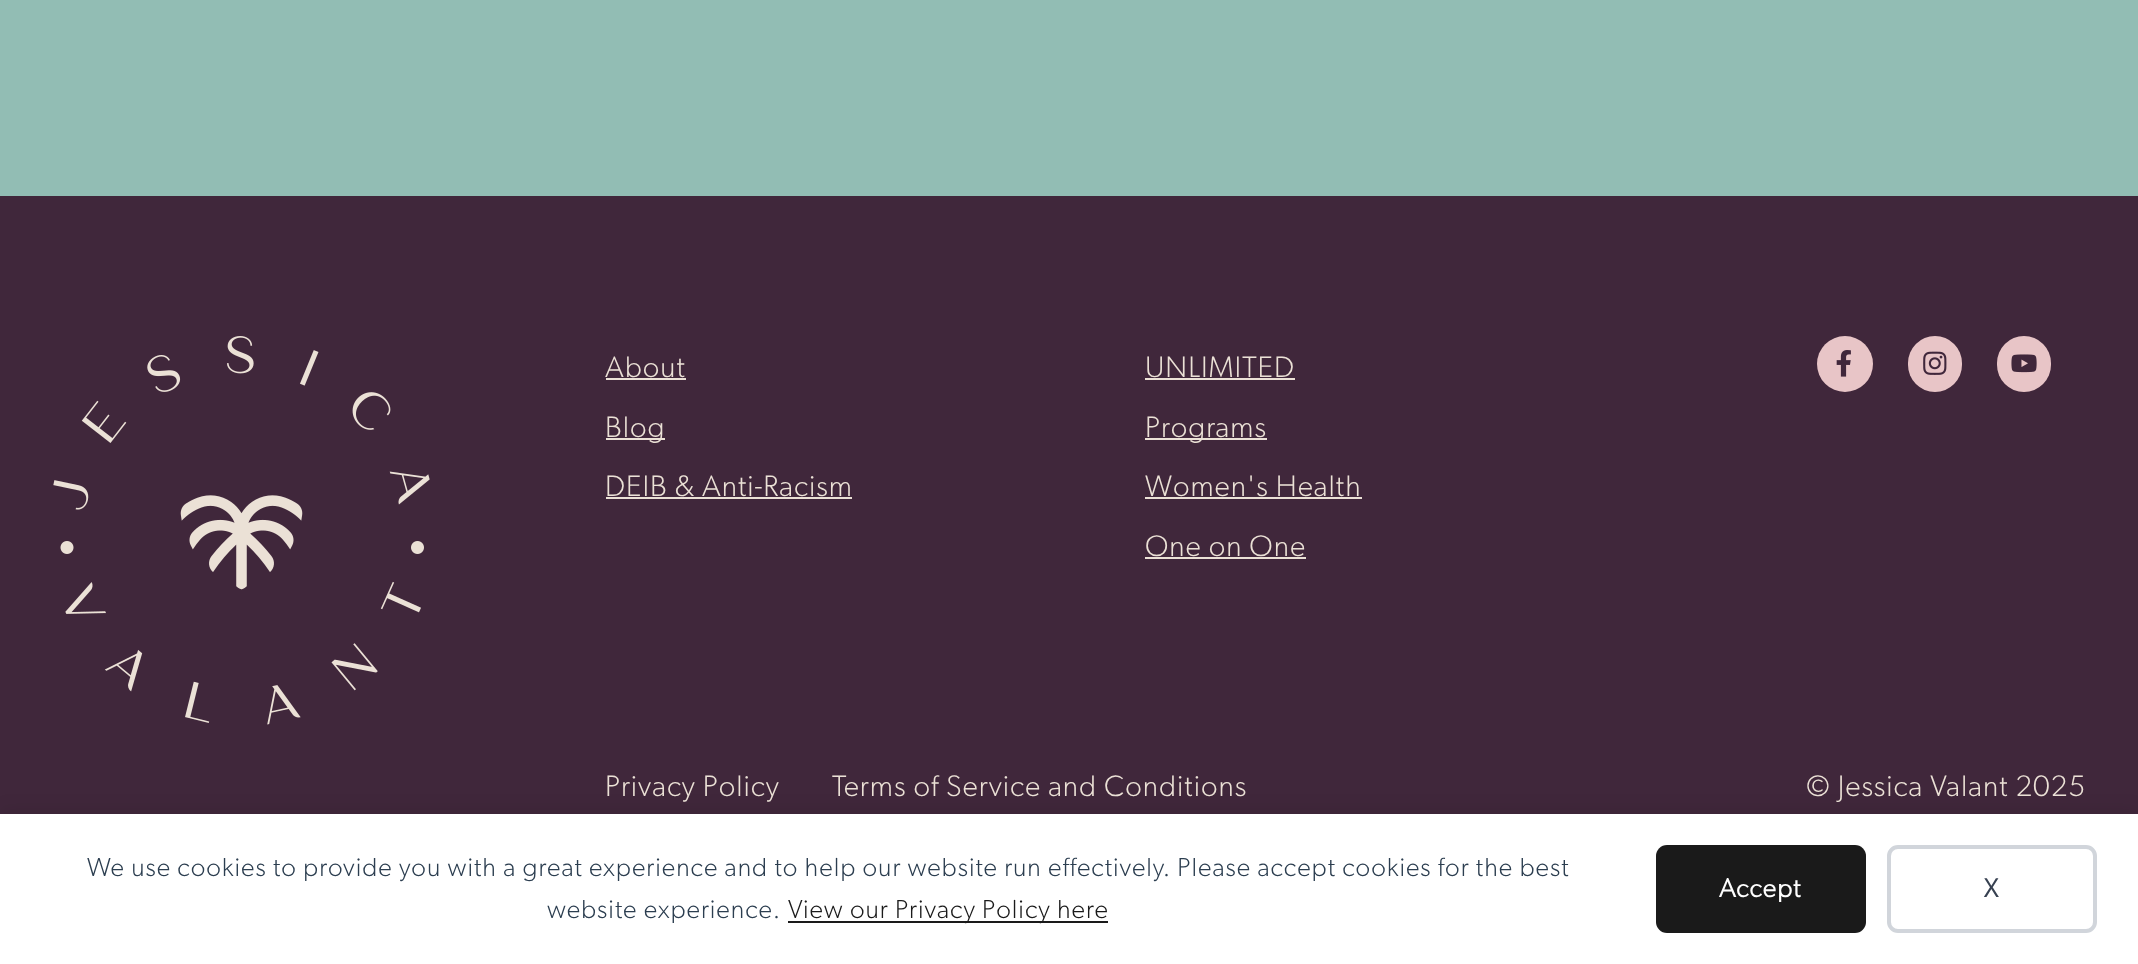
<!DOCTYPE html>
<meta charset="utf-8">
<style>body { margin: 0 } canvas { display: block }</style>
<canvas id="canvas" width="2138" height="964"></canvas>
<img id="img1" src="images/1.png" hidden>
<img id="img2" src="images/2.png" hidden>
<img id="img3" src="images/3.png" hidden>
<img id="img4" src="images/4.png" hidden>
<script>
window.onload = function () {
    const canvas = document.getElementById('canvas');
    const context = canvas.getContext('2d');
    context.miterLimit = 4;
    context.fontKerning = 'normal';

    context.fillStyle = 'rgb(146, 189, 180)';
    context.fillRect(0, 0, 2138, 964);
    context.fillStyle = 'rgb(64, 39, 59)';
    context.fillRect(0, 196, 2138, 618);
    context.drawImage(document.getElementById('img1'), 53, 336, 377, 389);
    context.fillStyle = 'rgb(235, 225, 214)';
    context.fillRect(606, 378, 80, 2);
    context.fillRect(606, 438, 59, 2);
    context.fillRect(606, 497, 246, 2);
    context.fillRect(1145, 378, 150, 2);
    context.fillRect(1145, 438, 122, 2);
    context.fillRect(1145, 497, 217, 2);
    context.fillRect(1145, 557, 161, 2);
    context.fillStyle = 'rgb(232, 197, 199)';
    context.beginPath();
    context.arc(1845, 364, 28, 0, 2 * Math.PI);
    context.fill();
    context.drawImage(document.getElementById('img2'), 1836, 350, 15, 27);
    context.beginPath();
    context.roundRect(1908, 336, 54, 56, 27);
    context.fill();
    context.drawImage(document.getElementById('img3'), 1923, 351, 24, 24);
    context.beginPath();
    context.roundRect(1997, 336, 54, 56, 27);
    context.fill();
    context.drawImage(document.getElementById('img4'), 2011, 354, 26, 19);
    context.fillStyle = 'rgba(0, 0, 0, 0.08)';
    context.filter = 'blur(9px)';
    context.beginPath();
    context.rect(0, 810, 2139, 151);
    context.fill();
    context.filter = 'none';
    context.fillStyle = 'rgb(255, 255, 255)';
    context.fillRect(0, 814, 2138, 150);
    context.fillStyle = 'rgb(26, 26, 26)';
    context.fillRect(788, 921, 320, 2);
    context.beginPath();
    context.roundRect(1656, 845, 210, 88, 11);
    context.fill();
    context.beginPath();
    context.roundRect(1889, 847, 206, 84, 9);
    context.strokeStyle = 'rgb(209, 213, 219)';
    context.lineWidth = 4;
    context.stroke();
    context.letterSpacing = '1px';
    context.font = '300 29.75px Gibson';
    context.fillStyle = 'rgb(235, 225, 214)';
    context.fillText('About', 605, 377);
    context.fillText('Blog', 605, 437);
    context.fillText('DEIB & Anti-Racism', 605, 496);
    context.fillText('UNLIMITED', 1145, 377);
    context.fillText('Programs', 1145, 437);
    context.fillText('Women\'s Health', 1145, 496);
    context.fillText('One on One', 1145, 556);
    context.fillText('Privacy Policy', 605, 796);
    context.fillText('Terms of Service and Conditions', 832, 796);
    context.fillText('© Jessica Valant 2025', 1806, 796);
    context.font = '300 26.25px Gibson';
    context.fillStyle = 'rgb(44, 62, 80)';
    context.fillText('We use cookies to provide you with a great experience and to help our website run effectively. Please accept cookies for the best', 87, 876);
    context.fillText('website experience.', 547, 918);
    context.fillStyle = 'rgb(26, 26, 26)';
    context.fillText('View our Privacy Policy here', 788, 918);
    context.font = 'bold 26.25px Gibson';
    context.fillStyle = 'rgb(255, 255, 255)';
    context.fillText('Accept', 1719, 897);
    context.fillStyle = 'rgb(55, 65, 81)';
    context.fillText('X', 1984, 897);
};
</script>
